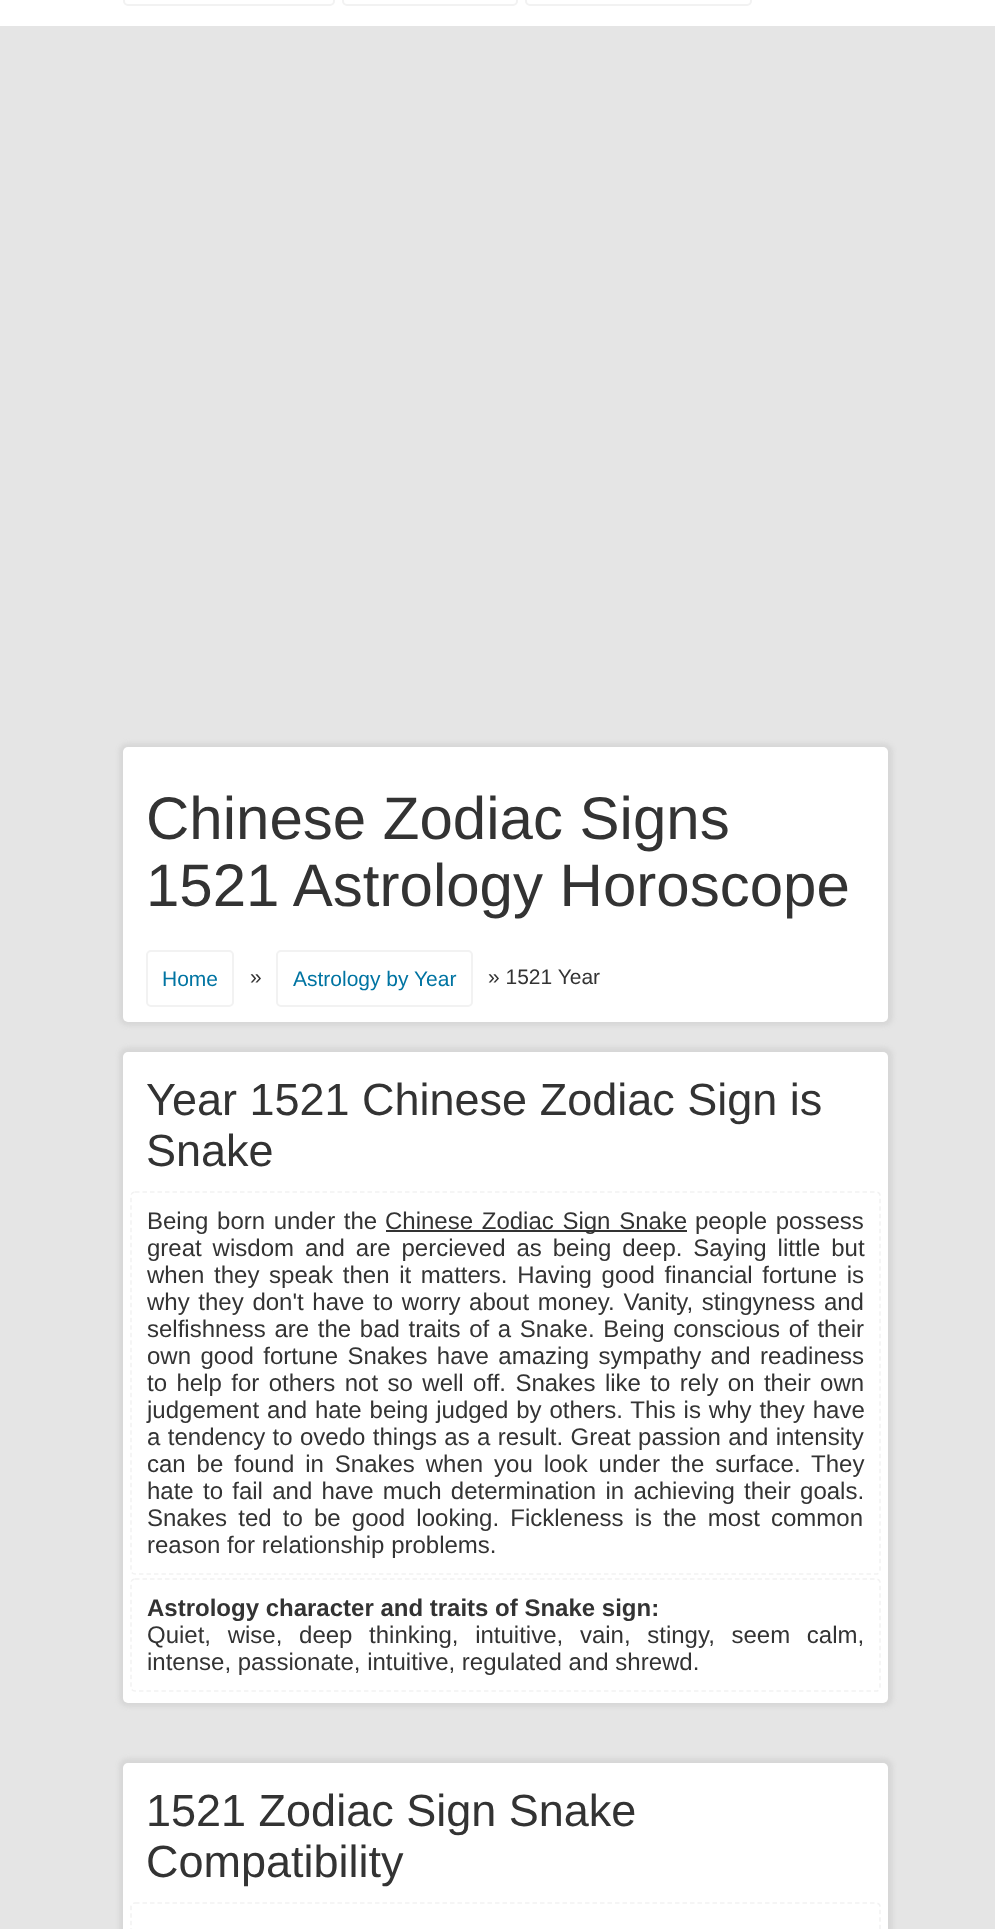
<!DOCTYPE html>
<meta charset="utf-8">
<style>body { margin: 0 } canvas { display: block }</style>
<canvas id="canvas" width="995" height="1929"></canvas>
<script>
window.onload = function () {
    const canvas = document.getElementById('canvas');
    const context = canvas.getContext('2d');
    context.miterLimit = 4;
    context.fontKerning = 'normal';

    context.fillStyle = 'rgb(229, 229, 229)';
    context.fillRect(0, 0, 995, 1929);
    context.fillStyle = 'rgb(255, 255, 255)';
    context.fillRect(0, 0, 995, 26);
    context.beginPath();
    context.roundRect(124, -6, 210, 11, 4);
    context.strokeStyle = 'rgb(242, 242, 242)';
    context.lineWidth = 2;
    context.stroke();
    context.beginPath();
    context.roundRect(343, -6, 174, 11, 4);
    context.stroke();
    context.beginPath();
    context.roundRect(526, -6, 225, 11, 4);
    context.stroke();
    context.fillStyle = 'rgb(215, 215, 215)';
    context.filter = 'blur(2px)';
    context.beginPath();
    context.roundRect(119, 743, 774, 283, 9);
    context.fill();
    context.filter = 'none';
    context.fillStyle = 'rgb(255, 255, 255)';
    context.beginPath();
    context.roundRect(123, 747, 765, 275, 5);
    context.fill();
    context.beginPath();
    context.roundRect(147, 951, 86, 55, 4);
    context.stroke();
    context.beginPath();
    context.roundRect(277, 951, 195, 55, 4);
    context.stroke();
    context.fillStyle = 'rgb(215, 215, 215)';
    context.filter = 'blur(2px)';
    context.beginPath();
    context.roundRect(119, 1047, 774, 660, 9);
    context.fill();
    context.filter = 'none';
    context.fillStyle = 'rgb(255, 255, 255)';
    context.beginPath();
    context.roundRect(123, 1052, 765, 651, 5);
    context.fill();
    context.beginPath();
    context.moveTo(135, 1192);
    context.lineTo(876, 1192);
    context.bezierCurveTo(878, 1192, 880, 1193.5, 880, 1195.5);
    context.lineTo(880, 1570.5);
    context.bezierCurveTo(880, 1572.5, 878, 1574, 876, 1574);
    context.lineTo(135, 1574);
    context.bezierCurveTo(133, 1574, 131, 1572.5, 131, 1570.5);
    context.lineTo(131, 1195.5);
    context.bezierCurveTo(131, 1193.5, 133, 1192, 135, 1192);
    context.closePath();
    context.lineWidth = 1.5;
    context.setLineDash([4.5, 3]);
    context.stroke();
    context.fillStyle = 'rgb(51, 51, 51)';
    context.fillRect(386, 1230, 301, 2);
    context.beginPath();
    context.moveTo(135, 1579);
    context.lineTo(876, 1579);
    context.bezierCurveTo(878, 1579, 880, 1580.5, 880, 1582.5);
    context.lineTo(880, 1687.5);
    context.bezierCurveTo(880, 1689.5, 878, 1691, 876, 1691);
    context.lineTo(135, 1691);
    context.bezierCurveTo(133, 1691, 131, 1689.5, 131, 1687.5);
    context.lineTo(131, 1582.5);
    context.bezierCurveTo(131, 1580.5, 133, 1579, 135, 1579);
    context.closePath();
    context.stroke();
    context.fillStyle = 'rgb(215, 215, 215)';
    context.filter = 'blur(2px)';
    context.beginPath();
    context.roundRect(119, 1758, 774, 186, 9);
    context.fill();
    context.filter = 'none';
    context.fillStyle = 'rgb(255, 255, 255)';
    context.beginPath();
    context.roundRect(123, 1763, 765, 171, 5);
    context.fill();
    context.beginPath();
    context.moveTo(135, 1903);
    context.lineTo(876, 1903);
    context.bezierCurveTo(878, 1903, 880, 1904.5, 880, 1906.5);
    context.lineTo(880, 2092.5);
    context.bezierCurveTo(880, 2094.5, 878, 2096, 876, 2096);
    context.lineTo(135, 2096);
    context.bezierCurveTo(133, 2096, 131, 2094.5, 131, 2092.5);
    context.lineTo(131, 1906.5);
    context.bezierCurveTo(131, 1904.5, 133, 1903, 135, 1903);
    context.closePath();
    context.stroke();
    context.font = '60px Liberation Sans';
    context.fillStyle = 'rgb(51, 51, 51)';
    context.fillText('Chinese Zodiac Signs', 146, 839);
    context.fillText('1521 Astrology Horoscope', 146, 906);
    context.font = '21px Liberation Sans';
    context.fillStyle = 'rgb(0, 116, 162)';
    context.fillText('Home', 162, 986);
    context.fillStyle = 'rgb(51, 51, 51)';
    context.fillText('»', 250, 984);
    context.fillStyle = 'rgb(0, 116, 162)';
    context.fillText('Astrology by Year', 293, 986);
    context.fillStyle = 'rgb(51, 51, 51)';
    context.fillText('» 1521 Year', 488, 984);
    context.font = '45px Liberation Sans';
    context.fillText('Year 1521 Chinese Zodiac Sign is', 146, 1115);
    context.fillText('Snake', 146, 1166);
    context.wordSpacing = '2px';
    context.font = '24px Liberation Sans';
    context.fillText('Being born under the', 147, 1229);
    context.fillText('Chinese Zodiac Sign Snake', 385, 1229);
    context.fillText('people possess', 695, 1229);
    context.wordSpacing = '4.25px';
    context.fillText('great wisdom and are percieved as being deep. Saying little but', 147, 1256);
    context.wordSpacing = '3px';
    context.fillText('when they speak then it matters. Having good financial fortune is', 147, 1283);
    context.wordSpacing = '2px';
    context.fillText('why they don\'t have to worry about money. Vanity, stingyness and', 147, 1310);
    context.fillText('selfishness are the bad traits of a Snake. Being conscious of their', 147, 1337);
    context.wordSpacing = '2.75px';
    context.fillText('own good fortune Snakes have amazing sympathy and readiness', 147, 1364);
    context.fillText('to help for others not so well off. Snakes like to rely on their own', 147, 1391);
    context.wordSpacing = '1.25px';
    context.fillText('judgement and hate being judged by others. This is why they have', 147, 1418);
    context.wordSpacing = '0.75px';
    context.fillText('a tendency to ovedo things as a result. Great passion and intensity', 147, 1445);
    context.wordSpacing = '4.25px';
    context.fillText('can be found in Snakes when you look under the surface. They', 147, 1472);
    context.wordSpacing = '2.6px';
    context.fillText('hate to fail and have much determination in achieving their goals.', 147, 1499);
    context.wordSpacing = '4.5px';
    context.fillText('Snakes ted to be good looking. Fickleness is the most common', 147, 1526);
    context.wordSpacing = '0px';
    context.fillText('reason for relationship problems.', 147, 1553);
    context.font = 'bold 24px Liberation Sans';
    context.fillText('Astrology character and traits of Snake sign:', 147, 1616);
    context.wordSpacing = '10px';
    context.font = '24px Liberation Sans';
    context.fillText('Quiet, wise, deep thinking, intuitive, vain, stingy, seem calm,', 147, 1643);
    context.wordSpacing = '0px';
    context.fillText('intense, passionate, intuitive, regulated and shrewd.', 147, 1670);
    context.font = '45px Liberation Sans';
    context.fillText('1521 Zodiac Sign Snake', 146, 1826);
    context.fillText('Compatibility', 146, 1877);
};
</script>
